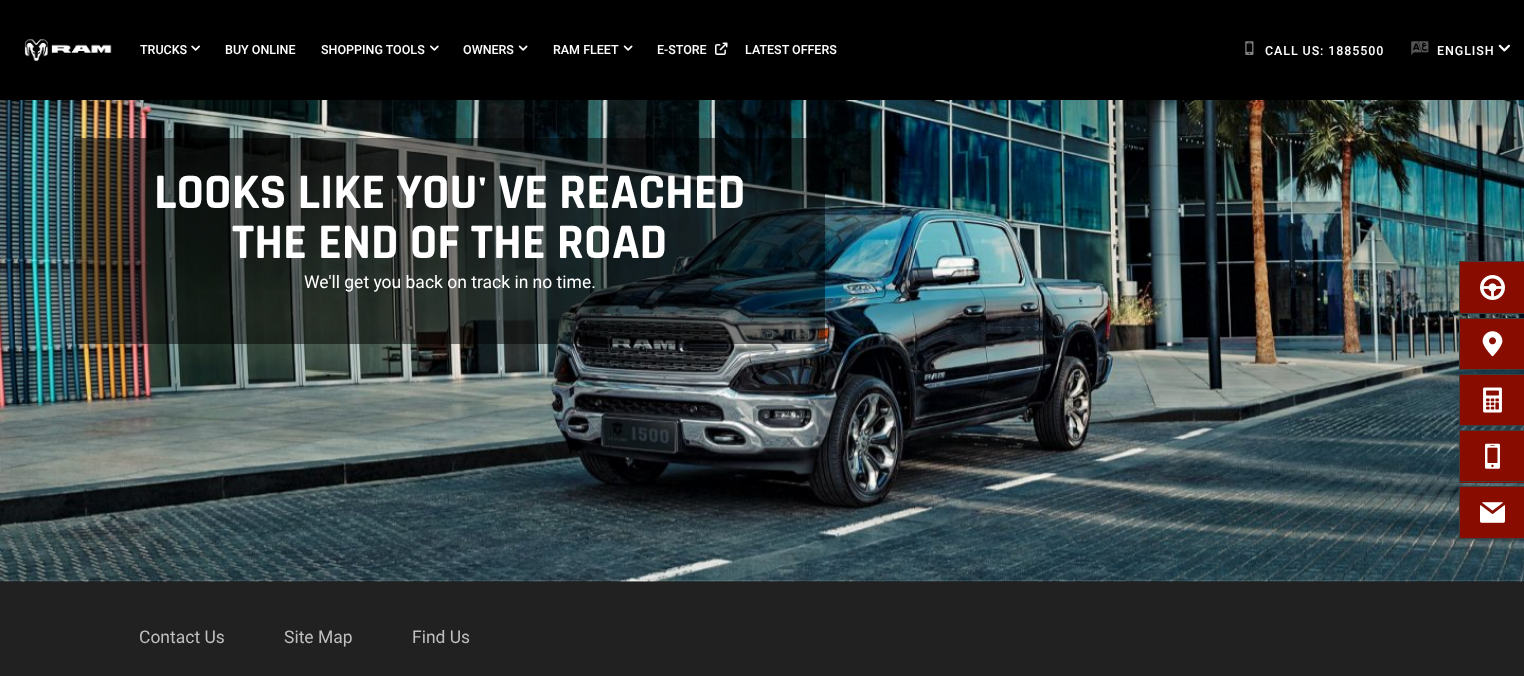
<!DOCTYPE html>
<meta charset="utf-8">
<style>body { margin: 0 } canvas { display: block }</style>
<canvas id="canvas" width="1524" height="676"></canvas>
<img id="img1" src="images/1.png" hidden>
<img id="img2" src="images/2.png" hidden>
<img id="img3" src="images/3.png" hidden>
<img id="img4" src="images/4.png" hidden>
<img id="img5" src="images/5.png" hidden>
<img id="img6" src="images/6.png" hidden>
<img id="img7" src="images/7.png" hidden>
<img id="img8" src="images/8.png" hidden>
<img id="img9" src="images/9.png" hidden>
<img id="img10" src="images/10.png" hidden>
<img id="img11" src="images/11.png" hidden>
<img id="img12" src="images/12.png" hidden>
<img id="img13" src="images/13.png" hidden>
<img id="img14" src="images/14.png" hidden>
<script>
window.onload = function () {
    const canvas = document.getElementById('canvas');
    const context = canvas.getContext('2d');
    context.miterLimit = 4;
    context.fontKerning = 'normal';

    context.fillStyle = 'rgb(255, 255, 255)';
    context.fillRect(0, 0, 1524, 676);
    context.fillStyle = 'rgb(0, 0, 0)';
    context.fillRect(0, 0, 1524, 100);
    context.drawImage(document.getElementById('img1'), 24, 39, 88, 22);
    context.drawImage(document.getElementById('img2'), 191, 45, 9, 6);
    context.drawImage(document.getElementById('img3'), 430, 45, 9, 6);
    context.drawImage(document.getElementById('img4'), 518, 45, 10, 6);
    context.drawImage(document.getElementById('img4'), 623, 45, 10, 6);
    context.drawImage(document.getElementById('img5'), 715, 42, 13, 13);
    context.drawImage(document.getElementById('img6'), 1245, 41, 9, 14);
    context.drawImage(document.getElementById('img7'), 1411, 41, 18, 14);
    context.drawImage(document.getElementById('img8'), 1498, 44, 12, 8);
    context.fillStyle = 'rgb(33, 33, 33)';
    context.fillRect(0, 581, 1524, 95);
    context.drawImage(document.getElementById('img9'), 0, 100, 1524, 482);
    context.fillStyle = 'rgba(0, 0, 0, 0.5)';
    context.fillRect(75, 138, 750, 206);
    context.fillStyle = 'rgb(62, 62, 62)';
    context.fillRect(1459, 261, 1, 53);
    context.fillStyle = 'rgb(136, 13, 0)';
    context.fillRect(1460, 262, 64, 51);
    context.fillStyle = 'rgb(62, 62, 62)';
    context.fillRect(1460, 261, 64, 1);
    context.fillRect(1460, 313, 64, 1);
    context.drawImage(document.getElementById('img10'), 1480, 275, 25, 25);
    context.fillRect(1459, 318, 1, 52);
    context.fillStyle = 'rgb(136, 13, 0)';
    context.fillRect(1460, 319, 64, 50);
    context.fillStyle = 'rgb(62, 62, 62)';
    context.fillRect(1460, 318, 64, 1);
    context.fillRect(1460, 369, 64, 1);
    context.drawImage(document.getElementById('img11'), 1482, 331, 21, 26);
    context.fillRect(1459, 374, 1, 52);
    context.fillStyle = 'rgb(136, 13, 0)';
    context.fillRect(1460, 375, 64, 50);
    context.fillStyle = 'rgb(62, 62, 62)';
    context.fillRect(1460, 374, 64, 1);
    context.fillRect(1460, 425, 64, 1);
    context.drawImage(document.getElementById('img12'), 1483, 387, 19, 26);
    context.fillRect(1459, 430, 1, 53);
    context.fillStyle = 'rgb(136, 13, 0)';
    context.fillRect(1460, 431, 64, 52);
    context.fillStyle = 'rgb(62, 62, 62)';
    context.fillRect(1460, 430, 64, 1);
    context.fillRect(1460, 481, 64, 1);
    context.drawImage(document.getElementById('img13'), 1485, 443, 15, 26);
    context.fillRect(1459, 486, 1, 53);
    context.fillStyle = 'rgb(136, 13, 0)';
    context.fillRect(1460, 487, 64, 51);
    context.fillStyle = 'rgb(62, 62, 62)';
    context.fillRect(1460, 486, 64, 1);
    context.fillRect(1460, 538, 64, 1);
    context.drawImage(document.getElementById('img14'), 1480, 502, 25, 21);
    context.font = '500 12.5px Roboto';
    context.fillStyle = 'rgb(255, 255, 255)';
    context.fillText('TRUCKS', 140, 54);
    context.fillText('BUY ONLINE', 225, 54);
    context.fillText('SHOPPING TOOLS', 321, 54);
    context.fillText('OWNERS', 463, 54);
    context.fillText('RAM FLEET', 553, 54);
    context.fillText('E-STORE', 657, 54);
    context.fillText('LATEST OFFERS', 745, 54);
    context.letterSpacing = '0.9px';
    context.fillText('CALL US: 1885500', 1265, 55);
    context.fillText('ENGLISH', 1437, 55);
    context.letterSpacing = '0px';
    context.font = 'bold 50px Rajdhani';
    context.fillText('LOOKS LIKE YOU\' VE REACHED', 154, 208);
    context.fillText('THE END OF THE ROAD', 232, 258);
    context.font = '17.5px Roboto';
    context.fillText('We\'ll get you back on track in no time.', 304, 288);
    context.fillStyle = 'rgb(191, 191, 191)';
    context.fillText('Contact Us', 139, 643);
    context.fillText('Site Map', 284, 643);
    context.fillText('Find Us', 412, 643);
};
</script>
